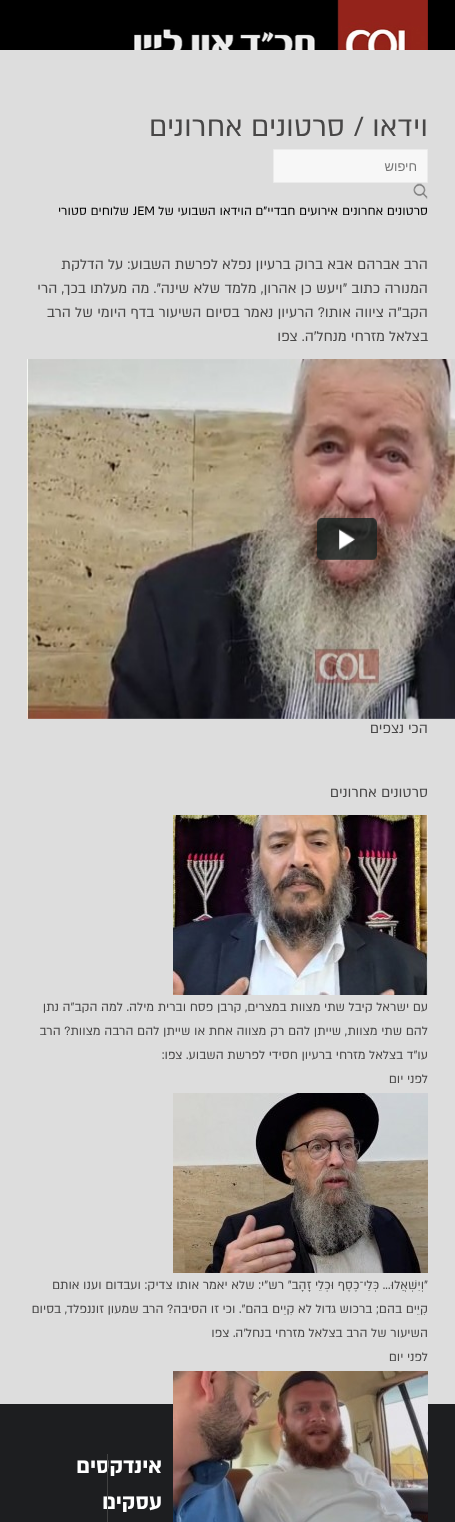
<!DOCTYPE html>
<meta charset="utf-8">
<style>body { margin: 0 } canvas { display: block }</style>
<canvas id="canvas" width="455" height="1522"></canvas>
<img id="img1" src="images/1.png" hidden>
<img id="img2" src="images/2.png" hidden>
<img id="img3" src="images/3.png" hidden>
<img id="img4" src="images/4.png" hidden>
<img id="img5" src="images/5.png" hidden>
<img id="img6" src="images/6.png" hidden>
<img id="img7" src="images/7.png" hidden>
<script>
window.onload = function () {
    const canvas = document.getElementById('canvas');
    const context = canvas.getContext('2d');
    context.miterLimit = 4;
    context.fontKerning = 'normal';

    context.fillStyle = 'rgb(221, 221, 221)';
    context.fillRect(0, 0, 455, 1522);
    context.fillStyle = 'rgb(0, 0, 0)';
    context.fillRect(0, 0, 455, 50);
    context.drawImage(document.getElementById('img1'), 134, 0, 294, 50);
    context.fillStyle = 'rgb(247, 247, 247)';
    context.beginPath();
    context.rect(273.5, 149.5, 154, 33);
    context.fill();
    context.strokeStyle = 'rgb(235, 235, 235)';
    context.stroke();
    context.drawImage(document.getElementById('img2'), 413, 183, 15, 16);
    context.drawImage(document.getElementById('img3'), 27, 359, 428, 360);
    context.drawImage(document.getElementById('img4'), 317, 518, 60, 42);
    context.drawImage(document.getElementById('img5'), 173, 815, 255, 180);
    context.drawImage(document.getElementById('img6'), 173, 1093, 255, 180);
    context.fillStyle = 'rgb(29, 30, 32)';
    context.fillRect(0, 1404, 455, 118);
    context.drawImage(document.getElementById('img7'), 173, 1371, 255, 151);
    context.direction = 'rtl';
    context.font = '32px "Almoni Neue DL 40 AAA"';
    context.fillStyle = 'rgb(72, 71, 71)';
    context.fillText('וידאו /', 428, 136);
    context.fillText('סרטונים אחרונים', 345, 136);
    context.font = '13px Liberation Sans';
    context.fillStyle = 'rgb(117, 117, 117)';
    context.fillText('חיפוש', 417, 171);
    context.font = '14px "Almoni Neue DL 40 AAA"';
    context.fillStyle = 'rgb(0, 0, 0)';
    context.fillText('סרטונים אחרונים', 428, 215);
    context.fillText('אירועים חבדיי"ם', 338, 215);
    context.fillText('הוידאו השבועי של', 252, 215);
    context.direction = 'ltr';
    context.fillText('JEM', 133, 215);
    context.direction = 'rtl';
    context.fillText('שלוחים סטורי', 129, 215);
    context.font = '16px "Almoni Neue DL 40 AAA"';
    context.fillStyle = 'rgb(72, 71, 71)';
    context.fillText('הרב אברהם אבא ברוק ברעיון נפלא לפרשת השבוע: על הדלקת', 428, 269);
    context.fillText('המנורה כתוב "ויעש כן אהרון, מלמד שלא שינה". מה מעלתו בכך, הרי', 428, 293);
    context.fillText('הקב"ה ציווה אותו? הרעיון נאמר בסיום השיעור בדף היומי של הרב', 428, 317);
    context.fillText('בצלאל מזרחי מנחל\'ה. צפו', 428, 341);
    context.fillText('הכי נצפים', 428, 733);
    context.fillText('סרטונים אחרונים', 428, 797);
    context.font = '14px "Almoni Neue DL 40 AAA"';
    context.fillText('עם ישראל קיבל שתי מצוות במצרים, קרבן פסח וברית מילה. למה הקב"ה נתן', 428, 1011);
    context.fillText('להם שתי מצוות, שייתן להם רק מצווה אחת או שייתן להם הרבה מצוות? הרב', 428, 1035);
    context.fillText('עו"ד בצלאל מזרחי ברעיון חסידי לפרשת השבוע. צפו:', 428, 1059);
    context.fillText('לפני יום', 428, 1083);
    context.fillText('"וְיִשְׁאֲלוּ... כְּלֵי־כֶסֶף וּכְלֵי זָהָב" רש"י: שלא יאמר אותו צדיק: ועבדום וענו אותם', 428, 1289);
    context.fillText('קִיֵים בהם; ברכוש גדול לא קִיֵים בהם". וכי זו הסיבה? הרב שמעון זוננפלד, בסיום', 428, 1313);
    context.fillText('השיעור של הרב בצלאל מזרחי בנחל\'ה. צפו', 428, 1337);
    context.fillText('לפני יום', 428, 1361);
    context.font = 'bold 24px "Almoni Neue DL 40 AAA"';
    context.fillStyle = 'rgb(255, 255, 255)';
    context.fillText('אינדקסים', 162, 1473);
    context.fillText('עסקים', 162, 1509);
    context.fillStyle = 'rgb(65, 65, 65)';
    context.fillRect(107, 1454, 1, 68);
};
</script>
